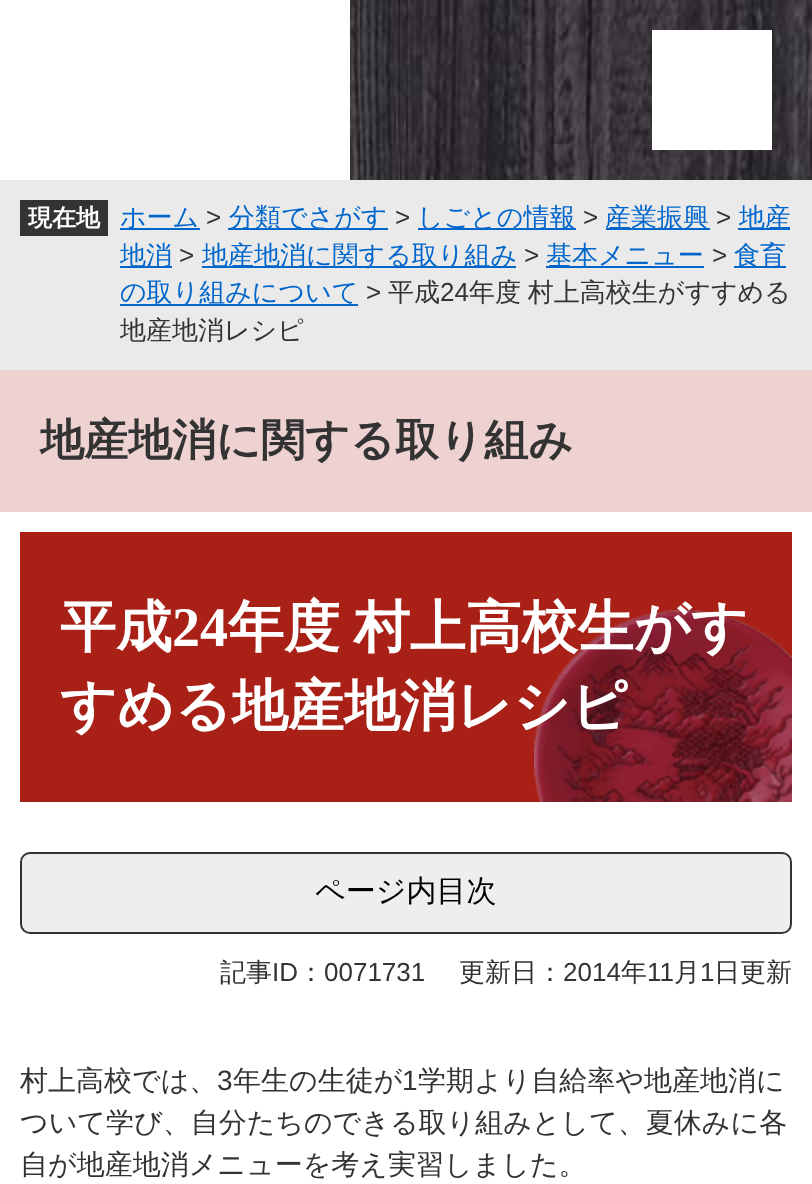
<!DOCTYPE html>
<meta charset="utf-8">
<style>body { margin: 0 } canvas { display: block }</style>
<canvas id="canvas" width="812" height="1184"></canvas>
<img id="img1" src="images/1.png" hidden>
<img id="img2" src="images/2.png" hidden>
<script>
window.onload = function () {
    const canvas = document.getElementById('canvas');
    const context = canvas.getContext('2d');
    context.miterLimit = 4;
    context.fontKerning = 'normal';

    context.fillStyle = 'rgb(255, 255, 255)';
    context.fillRect(0, 0, 812, 1184);
    context.drawImage(document.getElementById('img1'), 350, 0, 462, 180);
    context.fillRect(652, 30, 120, 120);
    context.fillStyle = 'rgb(234, 234, 234)';
    context.fillRect(0, 180, 812, 190);
    context.fillStyle = 'rgb(51, 51, 51)';
    context.fillRect(20, 200, 88, 36);
    context.fillStyle = 'rgb(0, 102, 204)';
    context.fillRect(120, 228, 80, 2);
    context.fillRect(228, 228, 160, 2);
    context.fillRect(418, 228, 158, 2);
    context.fillRect(606, 228, 104, 2);
    context.fillRect(738, 228, 52, 2);
    context.fillRect(120, 266, 52, 2);
    context.fillRect(202, 266, 314, 2);
    context.fillRect(546, 266, 158, 2);
    context.fillRect(734, 266, 52, 2);
    context.fillRect(120, 304, 238, 2);
    context.fillStyle = 'rgb(238, 210, 209)';
    context.fillRect(0, 370, 812, 142);
    context.fillStyle = 'rgb(169, 32, 23)';
    context.fillRect(20, 532, 772, 270);
    context.drawImage(document.getElementById('img2'), 534, 610, 258, 192);
    context.fillStyle = 'rgb(238, 238, 238)';
    context.beginPath();
    context.roundRect(21, 853, 770, 80, 9);
    context.fill();
    context.strokeStyle = 'rgb(51, 51, 51)';
    context.lineWidth = 2;
    context.stroke();
    context.font = 'bold 24px WenQuanYi Zen Hei';
    context.fillStyle = 'rgb(255, 255, 255)';
    context.fillText('現在地', 28, 226);
    context.font = '500 26px WenQuanYi Zen Hei';
    context.fillStyle = 'rgb(0, 102, 204)';
    context.fillText('ホーム', 120, 226);
    context.font = '26px Liberation Sans';
    context.fillStyle = 'rgb(51, 51, 51)';
    context.fillText('>', 206, 226);
    context.font = '500 26px WenQuanYi Zen Hei';
    context.fillStyle = 'rgb(0, 102, 204)';
    context.fillText('分類でさがす', 229, 226);
    context.font = '26px Liberation Sans';
    context.fillStyle = 'rgb(51, 51, 51)';
    context.fillText('>', 395, 226);
    context.font = '500 26px WenQuanYi Zen Hei';
    context.fillStyle = 'rgb(0, 102, 204)';
    context.fillText('しごとの情報', 417, 226);
    context.font = '26px Liberation Sans';
    context.fillStyle = 'rgb(51, 51, 51)';
    context.fillText('>', 583, 226);
    context.font = '500 26px WenQuanYi Zen Hei';
    context.fillStyle = 'rgb(0, 102, 204)';
    context.fillText('産業振興', 605, 226);
    context.font = '26px Liberation Sans';
    context.fillStyle = 'rgb(51, 51, 51)';
    context.fillText('>', 716, 226);
    context.font = '500 26px WenQuanYi Zen Hei';
    context.fillStyle = 'rgb(0, 102, 204)';
    context.fillText('地産', 739, 226);
    context.fillText('地消', 120, 264);
    context.font = '26px Liberation Sans';
    context.fillStyle = 'rgb(51, 51, 51)';
    context.fillText('>', 179, 264);
    context.font = '500 26px WenQuanYi Zen Hei';
    context.fillStyle = 'rgb(0, 102, 204)';
    context.fillText('地産地消に関する取り組み', 202, 264);
    context.font = '26px Liberation Sans';
    context.fillStyle = 'rgb(51, 51, 51)';
    context.fillText('>', 524, 264);
    context.font = '500 26px WenQuanYi Zen Hei';
    context.fillStyle = 'rgb(0, 102, 204)';
    context.fillText('基本メニュー', 546, 264);
    context.font = '26px Liberation Sans';
    context.fillStyle = 'rgb(51, 51, 51)';
    context.fillText('>', 712, 264);
    context.font = '500 26px WenQuanYi Zen Hei';
    context.fillStyle = 'rgb(0, 102, 204)';
    context.fillText('食育', 734, 264);
    context.fillText('の取り組みについて', 120, 301);
    context.font = '26px Liberation Sans';
    context.fillStyle = 'rgb(51, 51, 51)';
    context.fillText('>', 366, 301);
    context.font = '500 26px WenQuanYi Zen Hei';
    context.fillText('平成', 388, 301);
    context.font = '26px Liberation Sans';
    context.fillText('24', 440, 301);
    context.wordSpacing = '-1px';
    context.font = '500 26px WenQuanYi Zen Hei';
    context.fillText('年度 村上高校生がすすめる', 469, 301);
    context.wordSpacing = '0px';
    context.fillText('地産地消レシピ', 120, 339);
    context.font = 'bold 44px WenQuanYi Zen Hei';
    context.fillText('地産地消に関する取り組み', 40, 455);
    context.font = 'bold 56px WenQuanYi Zen Hei';
    context.fillStyle = 'rgb(255, 255, 255)';
    context.fillText('平成', 60, 646);
    context.font = 'bold 56px Liberation Serif';
    context.fillText('24', 172, 646);
    context.wordSpacing = '-3px';
    context.font = 'bold 56px WenQuanYi Zen Hei';
    context.fillText('年度 村上高校生がす', 228, 646);
    context.wordSpacing = '0px';
    context.fillText('すめる地産地消レシピ', 60, 725);
    context.font = '500 30px WenQuanYi Zen Hei';
    context.fillStyle = 'rgb(0, 0, 0)';
    context.fillText('ページ内目次', 315, 901);
    context.font = '500 26px WenQuanYi Zen Hei';
    context.fillStyle = 'rgb(51, 51, 51)';
    context.fillText('記事', 220, 981);
    context.font = '26px Liberation Sans';
    context.fillText('ID', 272, 981);
    context.font = '500 26px WenQuanYi Zen Hei';
    context.fillText('：', 298, 981);
    context.font = '26px Liberation Sans';
    context.fillText('0071731', 324, 981);
    context.font = '500 26px WenQuanYi Zen Hei';
    context.fillText('更新日：', 459, 981);
    context.font = '26px Liberation Sans';
    context.fillText('2014', 563, 981);
    context.font = '500 26px WenQuanYi Zen Hei';
    context.fillText('年', 621, 981);
    context.font = '26px Liberation Sans';
    context.fillText('11', 647, 981);
    context.font = '500 26px WenQuanYi Zen Hei';
    context.fillText('月', 674, 981);
    context.font = '26px Liberation Sans';
    context.fillText('1', 700, 981);
    context.font = '500 26px WenQuanYi Zen Hei';
    context.fillText('日更新', 714, 981);
    context.font = '500 28px WenQuanYi Zen Hei';
    context.fillText('村上高校では、', 20, 1090);
    context.font = '28px Liberation Sans';
    context.fillText('3', 217, 1090);
    context.font = '500 28px WenQuanYi Zen Hei';
    context.fillText('年生の生徒が', 233, 1090);
    context.font = '28px Liberation Sans';
    context.fillText('1', 402, 1090);
    context.font = '500 28px WenQuanYi Zen Hei';
    context.fillText('学期より自給率や地産地消に', 418, 1090);
    context.fillText('ついて学び、自分たちのできる取り組みとして、夏休みに各', 20, 1132);
    context.fillText('自が地産地消メニューを考え実習しました。', 20, 1174);
};
</script>
